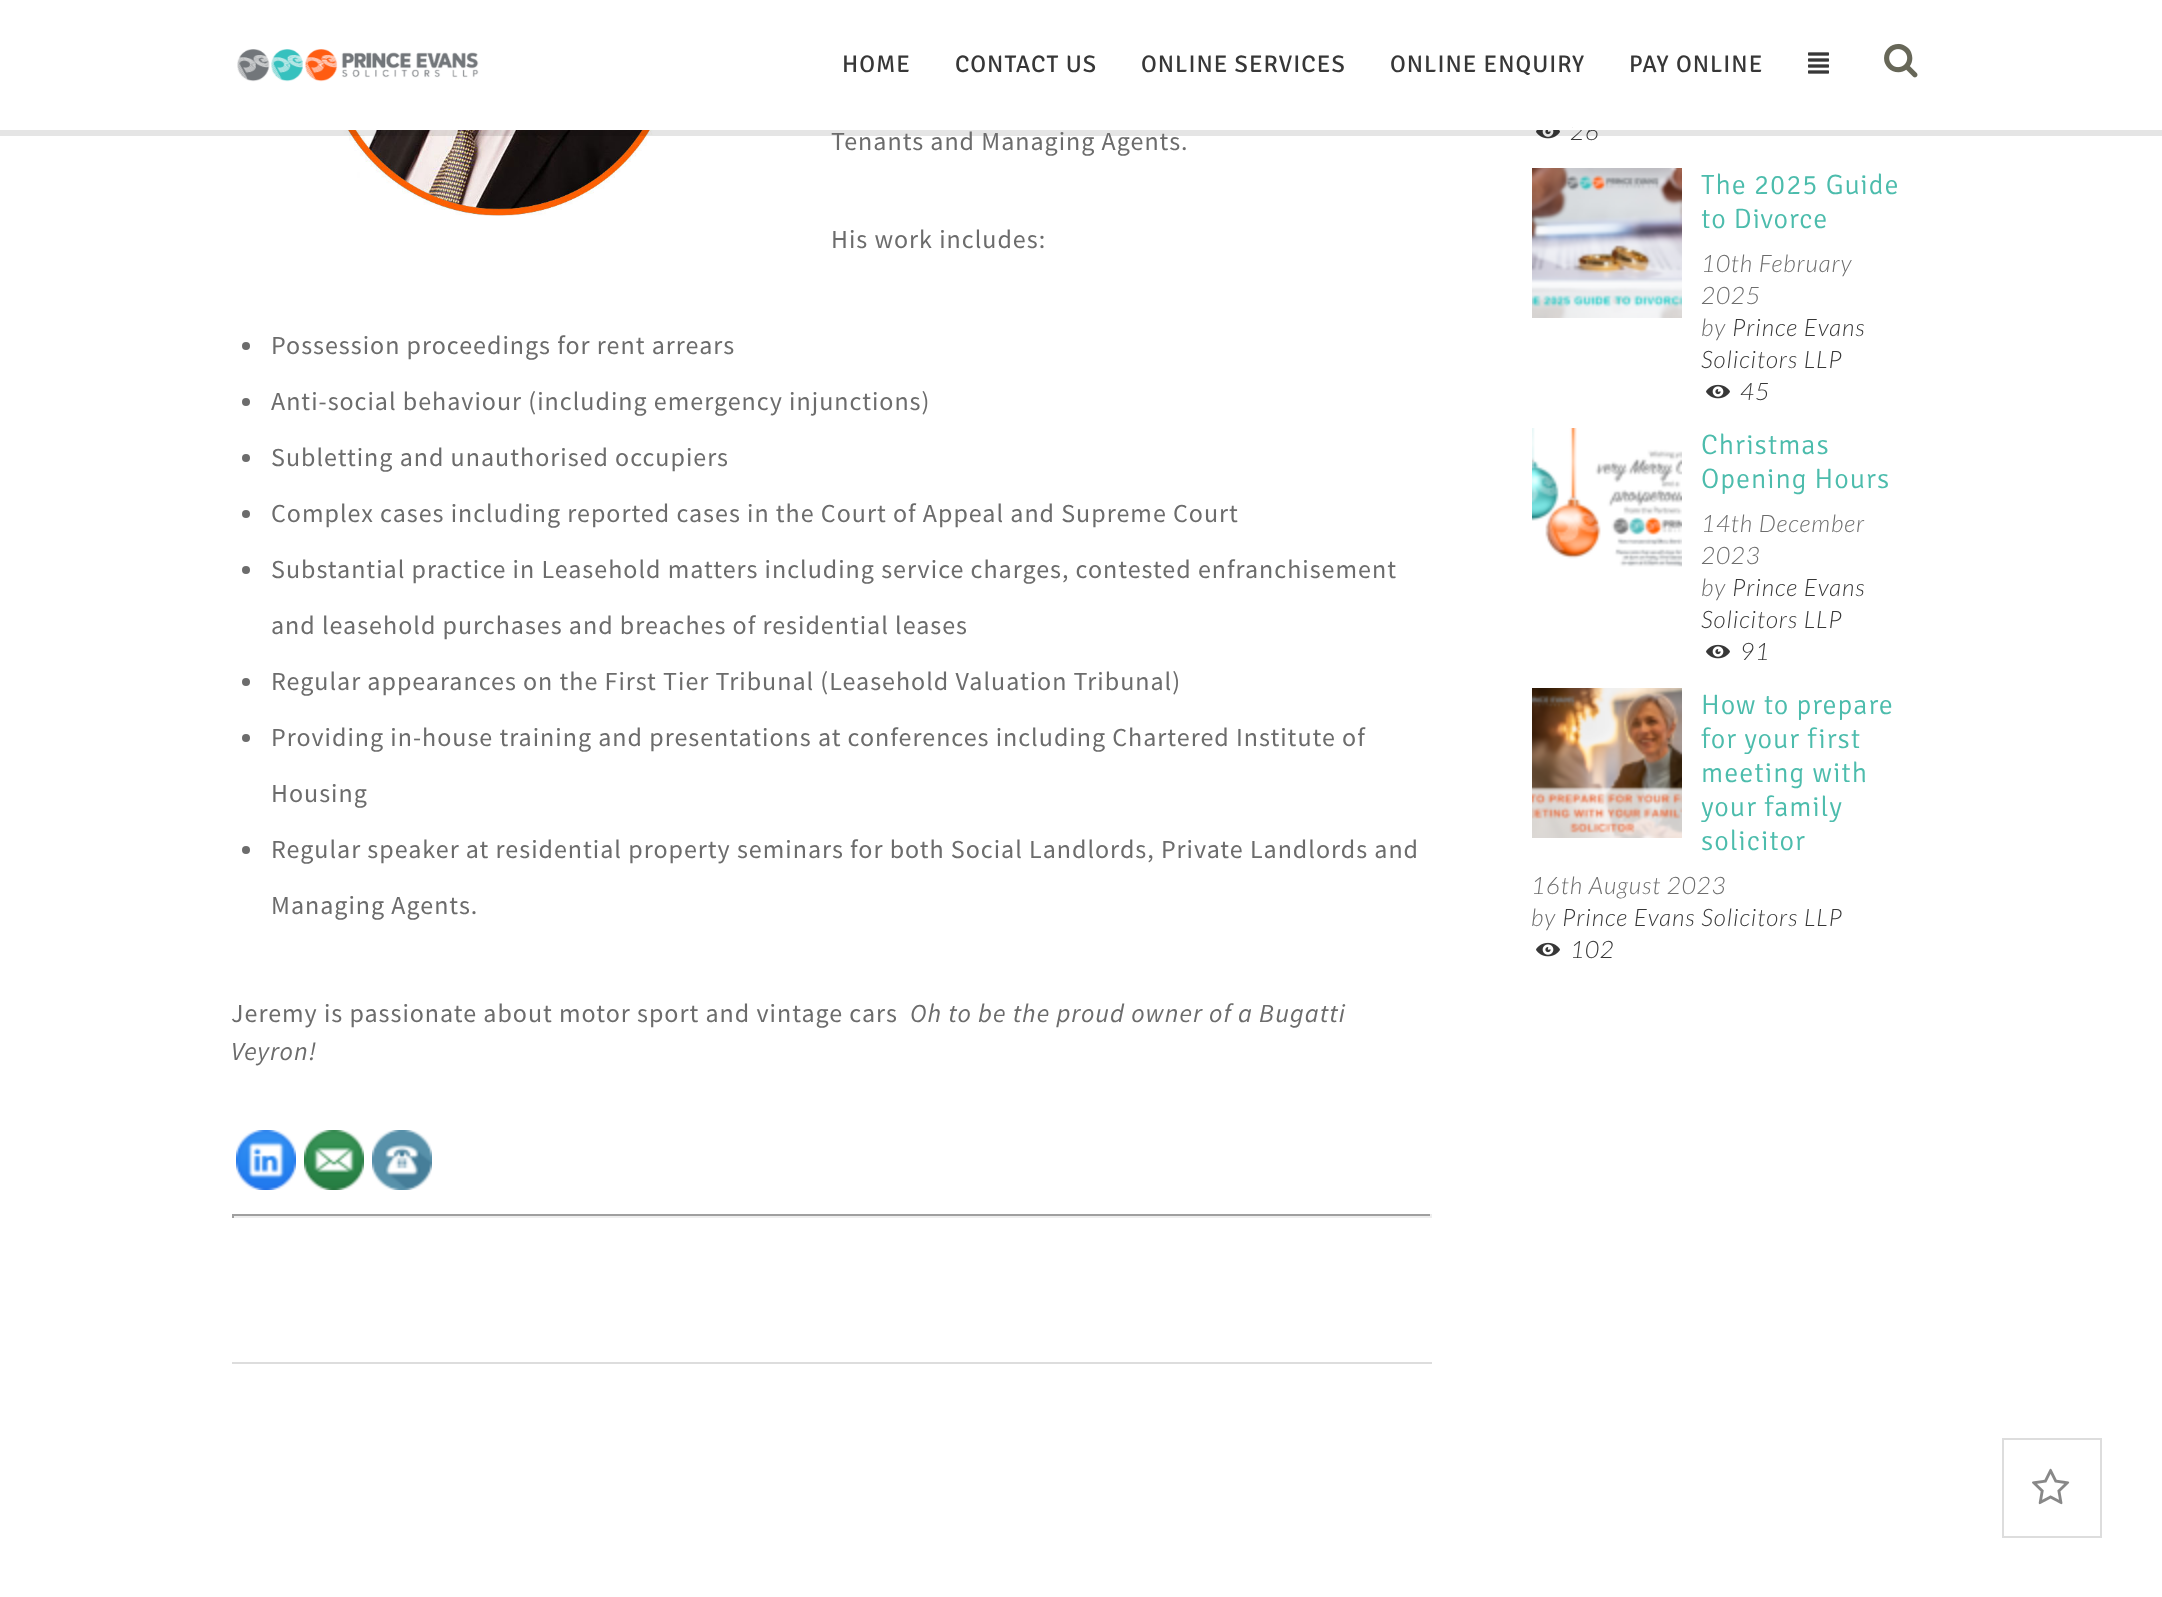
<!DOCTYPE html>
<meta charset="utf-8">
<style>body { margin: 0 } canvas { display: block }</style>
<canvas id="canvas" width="2162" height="1597"></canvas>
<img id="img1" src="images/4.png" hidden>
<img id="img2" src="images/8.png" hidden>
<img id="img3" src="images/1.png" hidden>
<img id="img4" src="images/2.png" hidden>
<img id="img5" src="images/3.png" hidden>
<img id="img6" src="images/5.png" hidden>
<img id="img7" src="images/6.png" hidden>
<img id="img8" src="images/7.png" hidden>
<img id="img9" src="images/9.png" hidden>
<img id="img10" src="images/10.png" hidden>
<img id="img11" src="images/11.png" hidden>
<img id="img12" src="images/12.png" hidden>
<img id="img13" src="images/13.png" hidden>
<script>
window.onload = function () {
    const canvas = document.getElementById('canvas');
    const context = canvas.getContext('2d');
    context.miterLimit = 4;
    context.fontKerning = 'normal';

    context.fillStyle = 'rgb(255, 255, 255)';
    context.fillRect(0, 0, 2162, 1597);
    context.drawImage(document.getElementById('img1'), 322, 130, 357, 86);
    context.drawImage(document.getElementById('img2'), 1536, 130, 24, 9);
    context.fillStyle = 'rgba(0, 0, 0, 0.1)';
    context.fillRect(0, 130, 2162, 6);
    context.drawImage(document.getElementById('img3'), 237, 49, 242, 33);
    context.drawImage(document.getElementById('img4'), 1808, 52, 21, 22);
    context.drawImage(document.getElementById('img5'), 1884, 43, 34, 35);
    context.fillStyle = 'rgb(221, 221, 221)';
    context.fillRect(232, 1362, 1200, 2);
    context.fillStyle = 'rgb(108, 108, 108)';
    context.beginPath();
    context.arc(246, 346, 4, 0, 2 * Math.PI);
    context.fill();
    context.beginPath();
    context.arc(246, 402, 4, 0, 2 * Math.PI);
    context.fill();
    context.beginPath();
    context.arc(246, 458, 4, 0, 2 * Math.PI);
    context.fill();
    context.beginPath();
    context.arc(246, 514, 4, 0, 2 * Math.PI);
    context.fill();
    context.beginPath();
    context.arc(246, 570, 4, 0, 2 * Math.PI);
    context.fill();
    context.beginPath();
    context.arc(246, 682, 4, 0, 2 * Math.PI);
    context.fill();
    context.beginPath();
    context.arc(246, 738, 4, 0, 2 * Math.PI);
    context.fill();
    context.beginPath();
    context.arc(246, 850, 4, 0, 2 * Math.PI);
    context.fill();
    context.drawImage(document.getElementById('img6'), 236, 1130, 60, 60);
    context.drawImage(document.getElementById('img7'), 304, 1130, 60, 60);
    context.drawImage(document.getElementById('img8'), 372, 1130, 60, 60);
    context.fillStyle = 'rgb(159, 159, 159)';
    context.fillRect(232, 1214, 1200, 2);
    context.fillStyle = 'rgb(238, 238, 238)';
    context.fillRect(1430, 1214, 2, 4);
    context.fillRect(232, 1216, 1200, 2);
    context.fillStyle = 'rgb(159, 159, 159)';
    context.fillRect(232, 1214, 2, 4);
    context.drawImage(document.getElementById('img9'), 1532, 168, 150, 150);
    context.drawImage(document.getElementById('img10'), 1706, 384, 24, 15);
    context.drawImage(document.getElementById('img11'), 1532, 428, 150, 139);
    context.drawImage(document.getElementById('img10'), 1706, 644, 24, 15);
    context.drawImage(document.getElementById('img12'), 1532, 688, 150, 150);
    context.drawImage(document.getElementById('img10'), 1536, 942, 24, 15);
    context.strokeStyle = 'rgb(221, 221, 221)';
    context.lineWidth = 2;
    context.strokeRect(2003, 1439, 98, 98);
    context.drawImage(document.getElementById('img13'), 2032, 1468, 38, 37);
    context.letterSpacing = '1px';
    context.font = '24px Signika';
    context.fillStyle = 'rgb(55, 55, 55)';
    context.fillText('HOME', 842, 72);
    context.fillText('CONTACT US', 955, 72);
    context.fillText('ONLINE SERVICES', 1141, 72);
    context.fillText('ONLINE ENQUIRY', 1390, 72);
    context.fillText('PAY ONLINE', 1629, 72);
    context.font = '26px Source Sans Pro';
    context.fillStyle = 'rgb(108, 108, 108)';
    context.fillText('Tenants and Managing Agents.', 831, 150);
    context.fillText('His work includes:', 831, 248);
    context.fillText('Possession proceedings for rent arrears', 271, 354);
    context.fillText('Anti-social behaviour (including emergency injunctions)', 271, 410);
    context.fillText('Subletting and unauthorised occupiers', 271, 466);
    context.fillText('Complex cases including reported cases in the Court of Appeal and Supreme Court', 271, 522);
    context.fillText('Substantial practice in Leasehold matters including service charges, contested enfranchisement', 271, 578);
    context.fillText('and leasehold purchases and breaches of residential leases', 271, 634);
    context.fillText('Regular appearances on the First Tier Tribunal (Leasehold Valuation Tribunal)', 271, 690);
    context.fillText('Providing in-house training and presentations at conferences including Chartered Institute of', 271, 746);
    context.fillText('Housing', 271, 802);
    context.fillText('Regular speaker at residential property seminars for both Social Landlords, Private Landlords and', 271, 858);
    context.fillText('Managing Agents.', 271, 914);
    context.fillText('Jeremy is passionate about motor sport and vintage cars', 231, 1022);
    context.font = 'italic 26px Source Sans Pro';
    context.fillText('Oh to be the proud owner of a Bugatti', 910, 1022);
    context.fillText('Veyron!', 231, 1060);
    context.font = 'italic 300 24px Lato';
    context.fillStyle = 'rgb(55, 55, 55)';
    context.fillText('26', 1570, 140);
    context.fillStyle = 'rgb(255, 255, 255)';
    context.fillRect(1573, 122, 24, 8);
    context.font = '300 28px Signika';
    context.fillStyle = 'rgb(76, 188, 172)';
    context.fillText('The 2025 Guide', 1701, 194);
    context.fillText('to Divorce', 1701, 228);
    context.font = 'italic 300 24px Lato';
    context.fillStyle = 'rgb(108, 108, 108)';
    context.fillText('10th February', 1701, 272);
    context.fillText('2025', 1701, 304);
    context.fillText('by', 1701, 336);
    context.fillStyle = 'rgb(55, 55, 55)';
    context.fillText('Prince Evans', 1732, 336);
    context.fillText('Solicitors LLP', 1701, 368);
    context.fillText('45', 1740, 400);
    context.font = '300 28px Signika';
    context.fillStyle = 'rgb(76, 188, 172)';
    context.fillText('Christmas', 1701, 454);
    context.fillText('Opening Hours', 1701, 488);
    context.font = 'italic 300 24px Lato';
    context.fillStyle = 'rgb(108, 108, 108)';
    context.fillText('14th December', 1701, 532);
    context.fillText('2023', 1701, 564);
    context.fillText('by', 1701, 596);
    context.fillStyle = 'rgb(55, 55, 55)';
    context.fillText('Prince Evans', 1732, 596);
    context.fillText('Solicitors LLP', 1701, 628);
    context.fillText('91', 1740, 660);
    context.font = '300 28px Signika';
    context.fillStyle = 'rgb(76, 188, 172)';
    context.fillText('How to prepare', 1701, 714);
    context.fillText('for your first', 1701, 748);
    context.fillText('meeting with', 1701, 782);
    context.fillText('your family', 1701, 816);
    context.fillText('solicitor', 1701, 850);
    context.font = 'italic 300 24px Lato';
    context.fillStyle = 'rgb(108, 108, 108)';
    context.fillText('16th August 2023', 1531, 894);
    context.fillText('by', 1531, 926);
    context.fillStyle = 'rgb(55, 55, 55)';
    context.fillText('Prince Evans Solicitors LLP', 1562, 926);
    context.fillText('102', 1570, 958);
};
</script>
